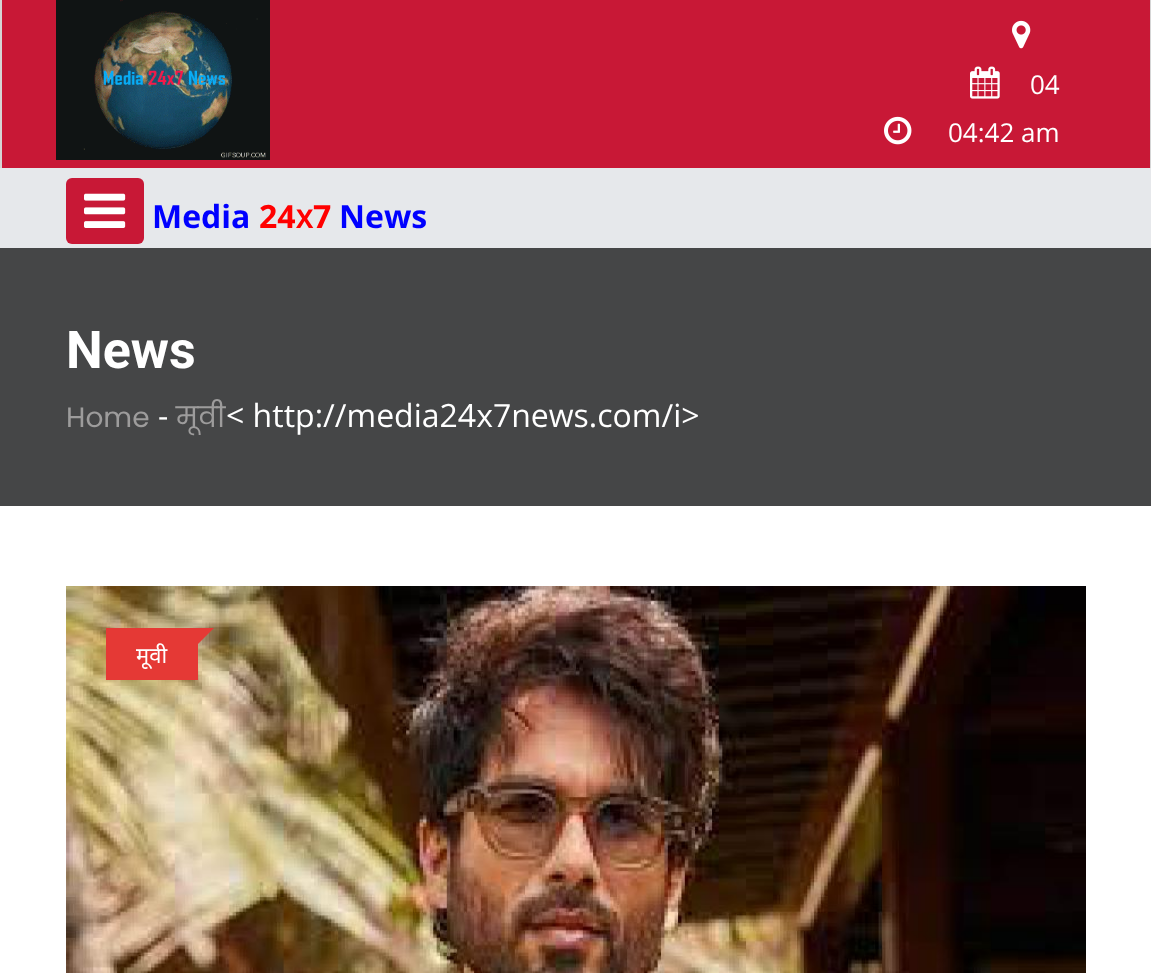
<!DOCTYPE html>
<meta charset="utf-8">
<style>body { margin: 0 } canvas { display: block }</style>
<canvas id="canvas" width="1151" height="973"></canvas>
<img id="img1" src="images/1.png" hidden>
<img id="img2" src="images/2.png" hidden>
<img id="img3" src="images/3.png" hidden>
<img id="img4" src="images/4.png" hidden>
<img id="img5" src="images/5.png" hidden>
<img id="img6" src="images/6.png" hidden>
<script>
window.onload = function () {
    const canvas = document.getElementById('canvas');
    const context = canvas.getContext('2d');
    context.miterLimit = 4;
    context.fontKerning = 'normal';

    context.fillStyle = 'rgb(230, 232, 235)';
    context.fillRect(0, 0, 1151, 973);
    context.fillStyle = 'rgb(200, 24, 54)';
    context.fillRect(2, 0, 1148, 168);
    context.fillStyle = 'rgb(213, 213, 213)';
    context.fillRect(1150, 0, 1, 168);
    context.fillRect(0, 0, 2, 168);
    context.drawImage(document.getElementById('img1'), 56, 0, 214, 160);
    context.drawImage(document.getElementById('img2'), 1012, 20, 19, 29);
    context.drawImage(document.getElementById('img3'), 970, 66, 30, 33);
    context.drawImage(document.getElementById('img4'), 884, 116, 28, 29);
    context.fillStyle = 'rgb(200, 24, 54)';
    context.beginPath();
    context.roundRect(66, 178, 78, 66, 6);
    context.fill();
    context.drawImage(document.getElementById('img5'), 84, 193, 42, 35);
    context.fillStyle = 'rgb(69, 70, 71)';
    context.fillRect(0, 248, 1151, 258);
    context.fillStyle = 'rgb(255, 255, 255)';
    context.fillRect(0, 506, 1151, 467);
    context.drawImage(document.getElementById('img6'), 66, 586, 1020, 387);
    context.fillStyle = 'rgb(229, 57, 53)';
    context.fillRect(106, 628, 92, 52);
    context.beginPath();
    context.moveTo(198, 628);
    context.lineTo(214, 628);
    context.lineTo(198, 644);
    context.closePath();
    context.fill();
    context.font = '26px Open Sans';
    context.fillStyle = 'rgb(255, 255, 255)';
    context.fillText('04', 1030, 94);
    context.fillText('04:42 am', 948, 142);
    context.font = 'bold 32px Open Sans';
    context.fillStyle = 'rgb(0, 0, 255)';
    context.fillText('Media', 152, 228);
    context.fillStyle = 'rgb(255, 0, 0)';
    context.fillText('24', 259, 228);
    context.font = 'bold 26px Open Sans';
    context.fillText('X', 296, 228);
    context.font = 'bold 32px Open Sans';
    context.fillText('7', 313, 228);
    context.fillStyle = 'rgb(0, 0, 255)';
    context.fillText('News', 339, 228);
    context.font = 'bold 52px Roboto';
    context.fillStyle = 'rgb(255, 255, 255)';
    context.fillText('News', 66, 368);
    context.font = '28px Poppins';
    context.fillStyle = 'rgb(157, 156, 156)';
    context.fillText('Home', 66, 427);
    context.font = '32px Open Sans';
    context.fillStyle = 'rgb(255, 255, 255)';
    context.fillText('-', 158, 427);
    context.font = '28px Poppins';
    context.fillStyle = 'rgb(157, 156, 156)';
    context.fillText('मूवी', 176, 427);
    context.font = '32px Open Sans';
    context.fillStyle = 'rgb(255, 255, 255)';
    context.fillText('< http://media24x7news.com/i>', 226, 427);
    context.font = '22px Noto Sans';
    context.fillText('मूवी', 136, 663);
};
</script>
